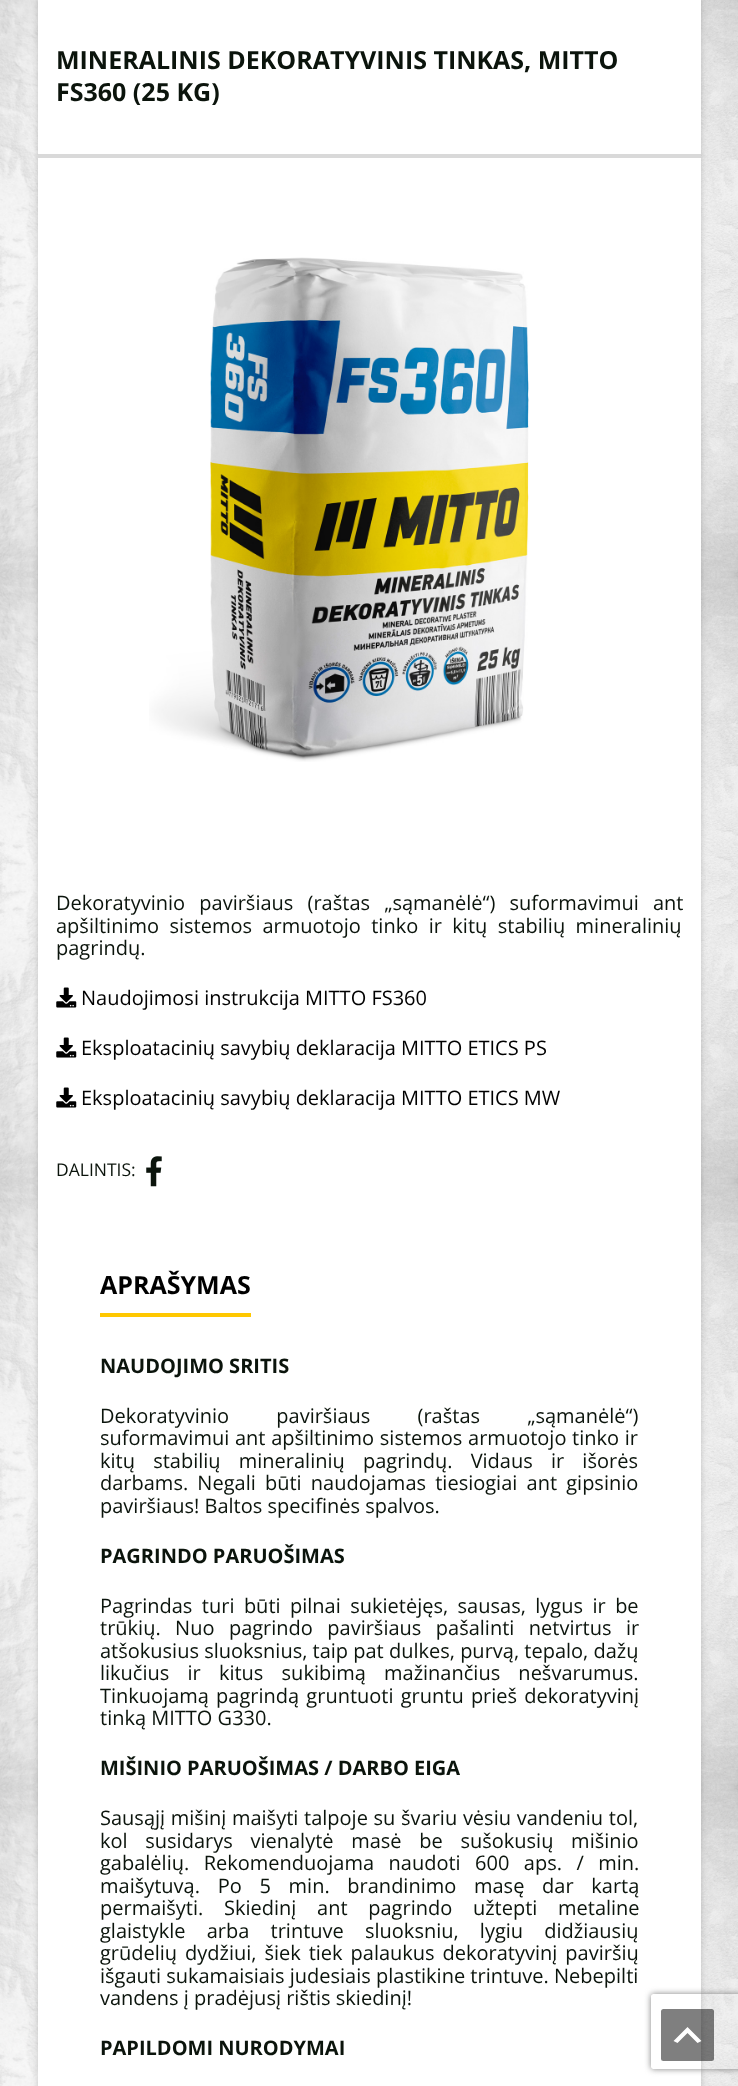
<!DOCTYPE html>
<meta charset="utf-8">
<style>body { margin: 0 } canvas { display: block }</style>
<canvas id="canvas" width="738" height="2086"></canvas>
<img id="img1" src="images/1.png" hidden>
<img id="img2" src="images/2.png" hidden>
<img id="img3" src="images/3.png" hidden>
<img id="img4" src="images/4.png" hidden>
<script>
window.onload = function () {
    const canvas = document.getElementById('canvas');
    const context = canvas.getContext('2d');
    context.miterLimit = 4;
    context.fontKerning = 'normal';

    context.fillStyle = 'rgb(255, 255, 255)';
    context.fillRect(0, 0, 738, 2086);
    context.drawImage(document.getElementById('img1'), 0, 0, 738, 2086);
    context.fillStyle = 'rgba(0, 0, 0, 0.18)';
    context.filter = 'blur(3px)';
    context.beginPath();
    context.rect(38, -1, 663, 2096);
    context.fill();
    context.filter = 'none';
    context.fillStyle = 'rgb(255, 255, 255)';
    context.fillRect(38, 0, 663, 2086);
    context.fillStyle = 'rgb(217, 217, 217)';
    context.fillRect(38, 154, 663, 4);
    context.drawImage(document.getElementById('img2'), 149, 257, 380, 505);
    context.drawImage(document.getElementById('img3'), 56, 987, 21, 21);
    context.drawImage(document.getElementById('img3'), 56, 1037, 21, 21);
    context.drawImage(document.getElementById('img3'), 56, 1087, 21, 21);
    context.drawImage(document.getElementById('img4'), 146, 1156, 16, 31);
    context.fillStyle = 'rgb(255, 200, 0)';
    context.fillRect(100, 1313, 151, 4);
    context.save();
    context.beginPath();
    context.moveTo(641, 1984);
    context.lineTo(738, 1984);
    context.lineTo(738, 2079);
    context.lineTo(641, 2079);
    context.closePath();
    context.moveTo(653.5, 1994);
    context.lineTo(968.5, 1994);
    context.bezierCurveTo(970, 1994, 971, 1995, 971, 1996.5);
    context.lineTo(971, 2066.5);
    context.bezierCurveTo(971, 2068, 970, 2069, 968.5, 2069);
    context.lineTo(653.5, 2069);
    context.bezierCurveTo(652, 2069, 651, 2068, 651, 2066.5);
    context.lineTo(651, 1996.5);
    context.bezierCurveTo(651, 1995, 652, 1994, 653.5, 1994);
    context.closePath();
    context.clip('evenodd');
    context.fillStyle = 'rgb(128, 128, 128)';
    context.filter = 'blur(3px)';
    context.beginPath();
    context.roundRect(651, 1994, 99, 75, 2.5);
    context.fill();
    context.filter = 'none';
    context.restore();
    context.fillStyle = 'rgba(0, 0, 0, 0.5)';
    context.beginPath();
    context.roundRect(661, 2009, 53, 52, 2.5);
    context.fill();
    context.fillStyle = 'rgb(255, 255, 255)';
    context.beginPath();
    context.moveTo(697.5, 2043);
    context.lineTo(687.5, 2033);
    context.lineTo(677.5, 2043);
    context.lineTo(673.5, 2041);
    context.lineTo(687.5, 2027);
    context.lineTo(701.5, 2041);
    context.closePath();
    context.fill();
    context.font = 'bold 25px Open Sans';
    context.fillStyle = 'rgb(11, 20, 12)';
    context.fillText('MINERALINIS DEKORATYVINIS TINKAS, MITTO', 56, 69);
    context.fillText('FS360 (25 KG)', 56, 101);
    context.wordSpacing = '9px';
    context.font = '20px Open Sans';
    context.fillText('Dekoratyvinio paviršiaus (raštas „sąmanėlė“) suformavimui ant', 56, 910);
    context.wordSpacing = '5.25px';
    context.fillText('apšiltinimo sistemos armuotojo tinko ir kitų stabilių mineralinių', 56, 933);
    context.wordSpacing = '0px';
    context.fillText('pagrindų.', 56, 955);
    context.fillStyle = 'rgb(0, 0, 0)';
    context.fillText('Naudojimosi instrukcija MITTO FS360', 81, 1005);
    context.fillText('Eksploatacinių savybių deklaracija MITTO ETICS PS', 81, 1055);
    context.fillText('Eksploatacinių savybių deklaracija MITTO ETICS MW', 81, 1105);
    context.font = '17.5px Open Sans';
    context.fillStyle = 'rgb(11, 20, 12)';
    context.fillText('DALINTIS:', 56, 1176);
    context.font = 'bold 25px Open Sans';
    context.fillStyle = 'rgb(0, 0, 0)';
    context.fillText('APRAŠYMAS', 100, 1294);
    context.font = 'bold 20px Open Sans';
    context.fillStyle = 'rgb(11, 20, 12)';
    context.fillText('NAUDOJIMO SRITIS', 100, 1373);
    context.wordSpacing = '42px';
    context.font = '20px Open Sans';
    context.fillText('Dekoratyvinio paviršiaus (raštas „sąmanėlė“)', 100, 1423);
    context.wordSpacing = '0.5px';
    context.fillText('suformavimui ant apšiltinimo sistemos armuotojo tinko ir', 100, 1445);
    context.wordSpacing = '13px';
    context.fillText('kitų stabilių mineralinių pagrindų. Vidaus ir išorės', 100, 1468);
    context.wordSpacing = '4px';
    context.fillText('darbams. Negali būti naudojamas tiesiogiai ant gipsinio', 100, 1490);
    context.wordSpacing = '0px';
    context.fillText('paviršiaus! Baltos specifinės spalvos.', 100, 1513);
    context.font = 'bold 20px Open Sans';
    context.fillText('PAGRINDO PARUOŠIMAS', 100, 1563);
    context.wordSpacing = '4.25px';
    context.font = '20px Open Sans';
    context.fillText('Pagrindas turi būti pilnai sukietėjęs, sausas, lygus ir be', 100, 1613);
    context.wordSpacing = '9.25px';
    context.fillText('trūkių. Nuo pagrindo paviršiaus pašalinti netvirtus ir', 100, 1635);
    context.wordSpacing = '0px';
    context.fillText('atšokusius sluoksnius, taip pat dulkes, purvą, tepalo, dažų', 100, 1658);
    context.wordSpacing = '13px';
    context.fillText('likučius ir kitus sukibimą mažinančius nešvarumus.', 100, 1680);
    context.wordSpacing = '2px';
    context.fillText('Tinkuojamą pagrindą gruntuoti gruntu prieš dekoratyvinį', 100, 1703);
    context.wordSpacing = '0px';
    context.fillText('tinką MITTO G330.', 100, 1725);
    context.font = 'bold 20px Open Sans';
    context.fillText('MIŠINIO PARUOŠIMAS / DARBO EIGA', 100, 1775);
    context.wordSpacing = '0.5px';
    context.font = '20px Open Sans';
    context.fillText('Sausąjį mišinį maišyti talpoje su švariu vėsiu vandeniu tol,', 100, 1825);
    context.wordSpacing = '12.5px';
    context.fillText('kol susidarys vienalytė masė be sušokusių mišinio', 100, 1848);
    context.wordSpacing = '9.25px';
    context.fillText('gabalėlių. Rekomenduojama naudoti 600 aps. / min.', 100, 1870);
    context.wordSpacing = '12.5px';
    context.fillText('maišytuvą. Po 5 min. brandinimo masę dar kartą', 100, 1893);
    context.wordSpacing = '15.5px';
    context.fillText('permaišyti. Skiedinį ant pagrindo užtepti metaline', 100, 1915);
    context.wordSpacing = '16px';
    context.fillText('glaistykle arba trintuve sluoksniu, lygiu didžiausių', 100, 1938);
    context.wordSpacing = '2.75px';
    context.fillText('grūdelių dydžiui, šiek tiek palaukus dekoratyvinį paviršių', 100, 1960);
    context.wordSpacing = '0px';
    context.fillText('išgauti sukamaisiais judesiais plastikine trintuve. Nebepilti', 100, 1983);
    context.fillText('vandens į pradėjusį rištis skiedinį!', 100, 2005);
    context.font = 'bold 20px Open Sans';
    context.fillText('PAPILDOMI NURODYMAI', 100, 2055);
};
</script>
